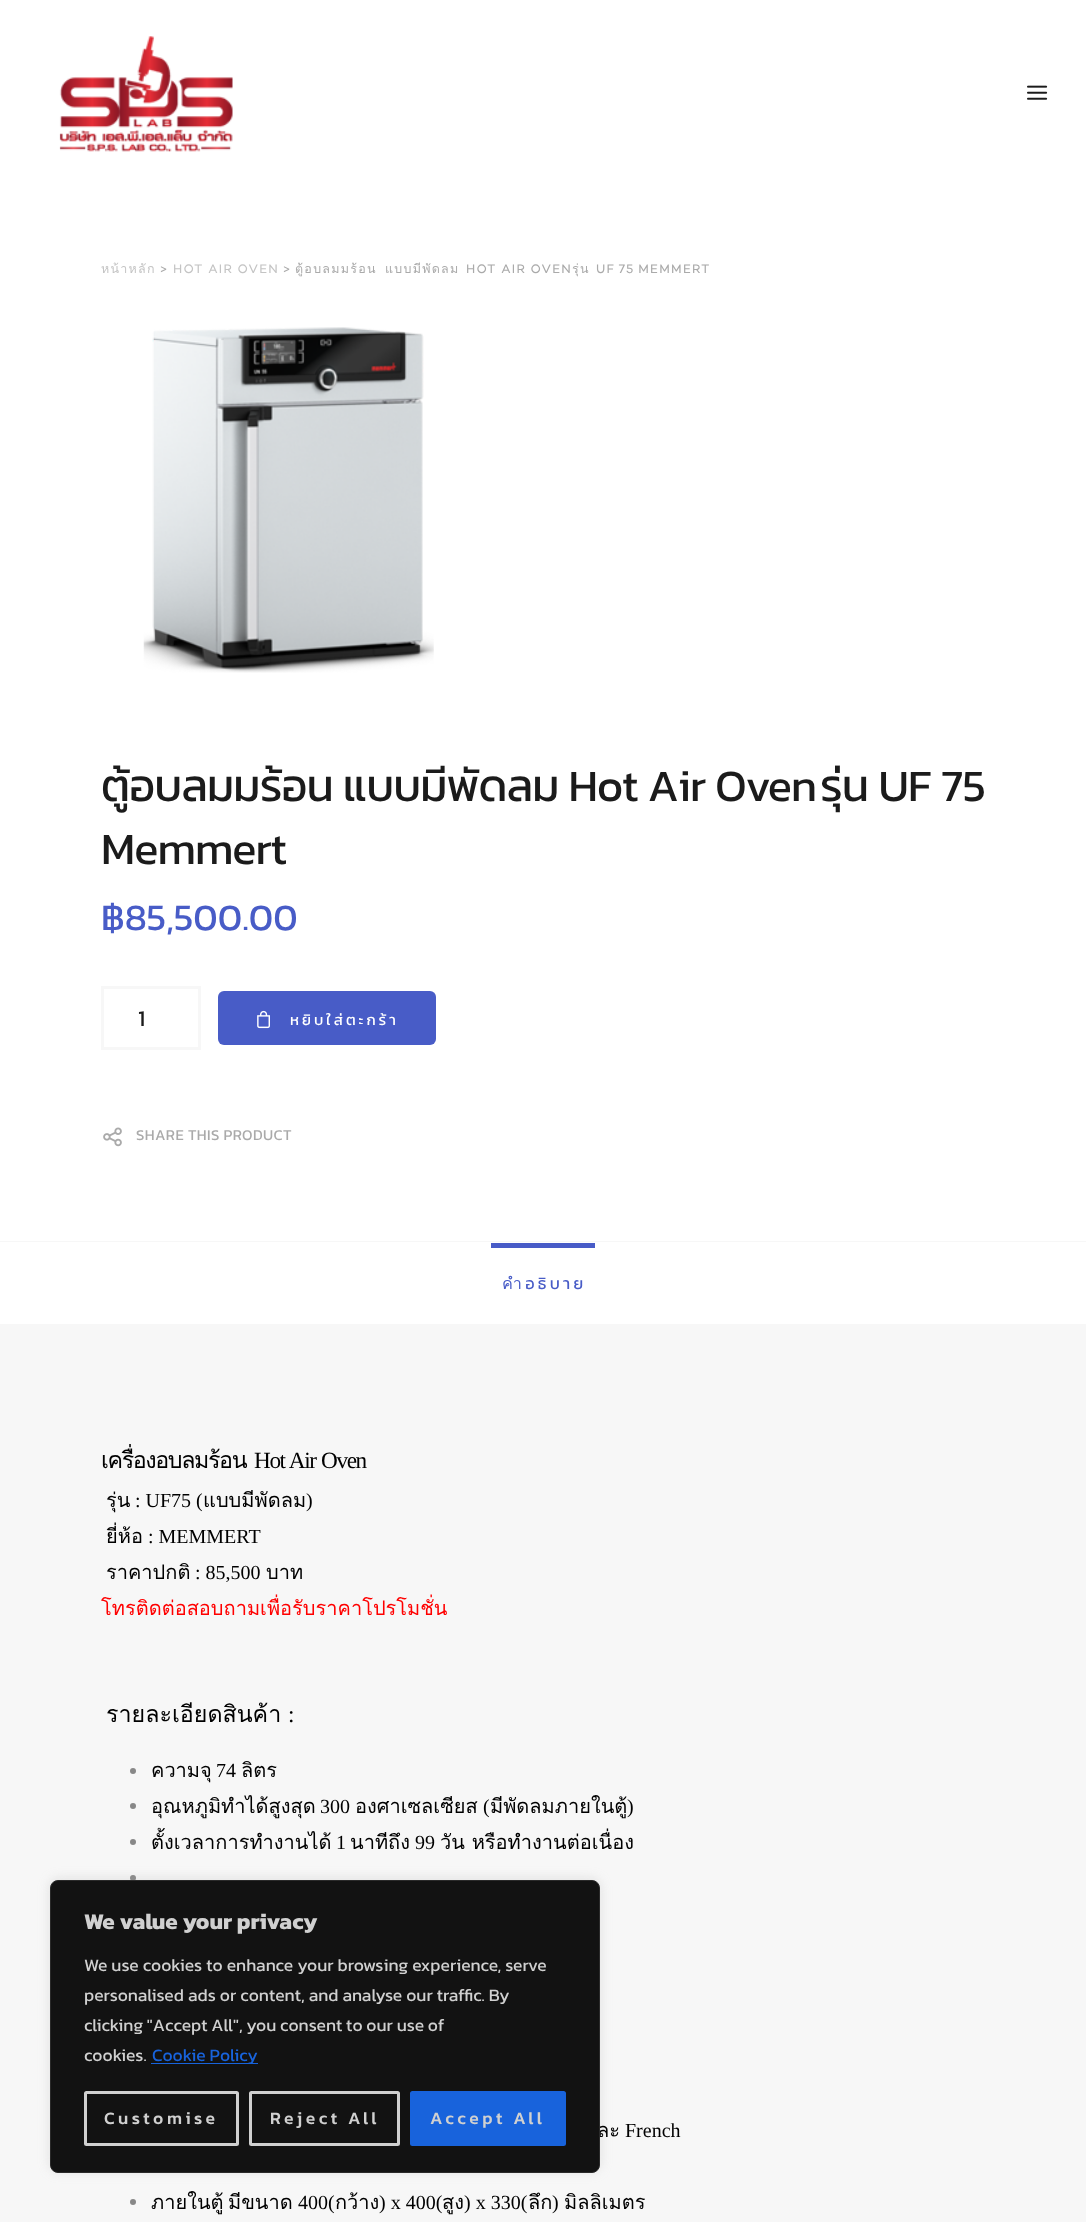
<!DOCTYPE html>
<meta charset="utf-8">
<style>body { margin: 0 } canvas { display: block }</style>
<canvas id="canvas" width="1086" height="2222"></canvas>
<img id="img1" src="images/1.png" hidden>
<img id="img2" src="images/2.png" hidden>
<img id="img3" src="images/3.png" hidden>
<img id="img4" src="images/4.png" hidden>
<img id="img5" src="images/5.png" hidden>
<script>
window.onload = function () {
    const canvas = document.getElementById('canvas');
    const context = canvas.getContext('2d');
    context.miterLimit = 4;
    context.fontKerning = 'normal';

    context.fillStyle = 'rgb(255, 255, 255)';
    context.fillRect(0, 0, 1086, 2222);
    context.drawImage(document.getElementById('img1'), 59, 36, 174, 116);
    context.drawImage(document.getElementById('img2'), 1027, 85, 21, 15);
    context.fillStyle = 'rgb(247, 247, 247)';
    context.fillRect(0, 1324, 1086, 898);
    context.drawImage(document.getElementById('img3'), 143, 327, 291, 346);
    context.strokeStyle = 'rgb(247, 247, 247)';
    context.lineWidth = 3;
    context.strokeRect(102.5, 987.5, 97, 61);
    context.fillStyle = 'rgb(72, 92, 199)';
    context.beginPath();
    context.roundRect(218, 991, 218, 54, 6);
    context.fill();
    context.drawImage(document.getElementById('img4'), 257, 1010, 13, 19);
    context.drawImage(document.getElementById('img5'), 103, 1127, 19, 20);
    context.fillStyle = 'rgb(247, 247, 247)';
    context.fillRect(0, 1241, 1086, 1);
    context.fillStyle = 'rgb(72, 92, 199)';
    context.fillRect(491, 1243, 104, 5);
    context.fillStyle = 'rgb(136, 136, 136)';
    context.beginPath();
    context.arc(133, 1771, 3, 0, 2 * Math.PI);
    context.fill();
    context.beginPath();
    context.arc(133, 1806, 3, 0, 2 * Math.PI);
    context.fill();
    context.beginPath();
    context.arc(133, 1842, 3, 0, 2 * Math.PI);
    context.fill();
    context.beginPath();
    context.arc(133, 1878, 3, 0, 2 * Math.PI);
    context.fill();
    context.beginPath();
    context.arc(133, 2202, 3, 0, 2 * Math.PI);
    context.fill();
    context.fillStyle = 'rgba(172, 171, 171, 0.3)';
    context.filter = 'blur(6px)';
    context.beginPath();
    context.roundRect(50, 1879, 550, 292, 8);
    context.fill();
    context.filter = 'none';
    context.letterSpacing = '1.25px';
    context.font = '12.5px Loma';
    context.fillStyle = 'rgb(196, 196, 196)';
    context.fillText('หน้าหลัก', 101, 273);
    context.font = '12.5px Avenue';
    context.fillStyle = 'rgb(170, 170, 170)';
    context.fillText('>', 160, 273);
    context.fillStyle = 'rgb(196, 196, 196)';
    context.fillText('HOT AIR OVEN', 173, 273);
    context.fillStyle = 'rgb(170, 170, 170)';
    context.fillText('>', 283, 273);
    context.font = '12.5px Loma';
    context.fillText('ตู้อบลมมร้อน', 295, 273);
    context.fillText('แบบมีพัดลม', 385, 273);
    context.font = '12.5px Avenue';
    context.fillText('HOT AIR OVEN', 466, 273);
    context.font = '12.5px Loma';
    context.fillText('รุ่น', 572, 273);
    context.wordSpacing = '-1px';
    context.font = '12.5px Avenue';
    context.fillText('UF 75 MEMMERT', 596, 273);
    context.letterSpacing = '-0.9px';
    context.wordSpacing = '0.5px';
    context.font = '45px Kanit';
    context.fillStyle = 'rgb(27, 27, 27)';
    context.fillText('ตู้อบลมมร้อน แบบมีพัดลม Hot Air Oven', 101, 801);
    context.wordSpacing = '1px';
    context.fillText('รุ่น UF 75', 820, 801);
    context.wordSpacing = '0px';
    context.fillText('Memmert', 101, 864);
    context.letterSpacing = '0px';
    context.font = '37.5px Kanit';
    context.fillStyle = 'rgb(72, 92, 199)';
    context.fillText('฿85,500.00', 101, 930);
    context.font = '22.5px Kanit';
    context.fillStyle = 'rgb(27, 27, 27)';
    context.fillText('1', 138, 1026);
    context.letterSpacing = '3px';
    context.font = '15px Kanit';
    context.fillStyle = 'rgb(255, 255, 255)';
    context.fillText('หยิบใส่ตะกร้า', 290, 1025);
    context.letterSpacing = '0.4px';
    context.fillStyle = 'rgb(170, 170, 170)';
    context.fillText('SHARE THIS PRODUCT', 136, 1140);
    context.letterSpacing = '3.25px';
    context.font = '16.25px Kanit';
    context.fillStyle = 'rgb(72, 92, 199)';
    context.fillText('คำอธิบาย', 502, 1289);
    context.letterSpacing = '-1.4px';
    context.font = '23.25px Loma';
    context.fillStyle = 'rgb(0, 0, 0)';
    context.fillText('เครื่องอบลมร้อน', 101, 1468);
    context.wordSpacing = '1px';
    context.font = '23.25px Liberation Serif';
    context.fillText('Hot Air Oven', 254, 1468);
    context.letterSpacing = '0px';
    context.wordSpacing = '0px';
    context.font = '20px Loma';
    context.fillText('รุ่น', 106, 1507);
    context.font = '20px Liberation Serif';
    context.fillText(': UF75 (', 135, 1507);
    context.font = '20px Loma';
    context.fillText('แบบมีพัดลม', 203, 1507);
    context.font = '20px Liberation Serif';
    context.fillText(')', 306, 1507);
    context.font = '20px Loma';
    context.fillText('ยี่ห้อ', 106, 1543);
    context.font = '20px Liberation Serif';
    context.fillText(': MEMMERT', 148, 1543);
    context.font = '20px Loma';
    context.fillText('ราคาปกติ', 106, 1579);
    context.font = '20px Liberation Serif';
    context.fillText(': 85,500', 195, 1579);
    context.font = '20px Loma';
    context.fillText('บาท', 266, 1579);
    context.fillStyle = 'rgb(255, 0, 0)';
    context.fillText('โทรติดต่อสอบถามเพื่อรับราคาโปรโมชั่น', 101, 1615);
    context.font = '23.25px Loma';
    context.fillStyle = 'rgb(0, 0, 0)';
    context.fillText('รายละเอียดสินค้า', 106, 1722);
    context.font = '23.25px Liberation Serif';
    context.fillText(':', 288, 1722);
    context.font = '20px Loma';
    context.fillText('ความจุ', 151, 1777);
    context.font = '20px Liberation Serif';
    context.fillText('74', 216, 1777);
    context.font = '20px Loma';
    context.fillText('ลิตร', 241, 1777);
    context.fillText('อุณหภูมิทำได้สูงสุด', 151, 1813);
    context.font = '20px Liberation Serif';
    context.fillText('300', 320, 1813);
    context.font = '20px Loma';
    context.fillText('องศาเซลเซียส', 355, 1813);
    context.font = '20px Liberation Serif';
    context.fillText('(', 483, 1813);
    context.font = '20px Loma';
    context.fillText('มีพัดลมภายในตู้', 490, 1813);
    context.font = '20px Liberation Serif';
    context.fillText(')', 627, 1813);
    context.font = '20px Loma';
    context.fillText('ตั้งเวลาการทำงานได้', 151, 1849);
    context.font = '20px Liberation Serif';
    context.fillText('1', 336, 1849);
    context.font = '20px Loma';
    context.fillText('นาทีถึง', 350, 1849);
    context.font = '20px Liberation Serif';
    context.fillText('99', 415, 1849);
    context.font = '20px Loma';
    context.fillText('วัน หรือทำงานต่อเนื่อง', 440, 1849);
    context.fillText('ละ', 597, 2137);
    context.font = '20px Liberation Serif';
    context.fillText('French', 625, 2137);
    context.font = '20px Loma';
    context.fillText('ภายในตู้', 151, 2209);
    context.fillText('มีขนาด', 228, 2209);
    context.font = '20px Liberation Serif';
    context.fillText('400(', 298, 2209);
    context.font = '20px Loma';
    context.fillText('กว้าง', 335, 2209);
    context.font = '20px Liberation Serif';
    context.fillText(') x 400(', 379, 2209);
    context.fillText(') x 330(', 464, 2209);
    context.font = '20px Loma';
    context.fillText('ลึก', 528, 2209);
    context.fillText('สูง', 442, 2209);
    context.font = '20px Liberation Serif';
    context.fillText(')', 552, 2209);
    context.font = '20px Loma';
    context.fillText('มิลลิเมตร', 564, 2209);
    context.fillStyle = 'rgb(18, 18, 18)';
    context.beginPath();
    context.roundRect(50.5, 1880.5, 549, 292, 7.5);
    context.fill();
    context.strokeStyle = 'rgb(42, 42, 42)';
    context.lineWidth = 1;
    context.stroke();
    context.font = 'bold 22.5px Kanit';
    context.fillStyle = 'rgb(208, 208, 208)';
    context.fillText('We value your privacy', 84, 1929);
    context.font = '17.5px Kanit';
    context.fillText('We use cookies to enhance your browsing experience, serve', 84, 1971);
    context.fillText('personalised ads or content, and analyse our traffic. By', 84, 2001);
    context.wordSpacing = '-0.25px';
    context.fillText('clicking "Accept All", you consent to our use of', 84, 2031);
    context.wordSpacing = '0px';
    context.fillText('cookies.', 84, 2061);
    context.fillStyle = 'rgb(24, 99, 220)';
    context.fillRect(151, 2063, 107, 1);
    context.fillText('Cookie Policy', 152, 2061);
    context.beginPath();
    context.roundRect(85.5, 2092.5, 152, 52, 1);
    context.strokeStyle = 'rgb(208, 208, 208)';
    context.lineWidth = 3;
    context.stroke();
    context.letterSpacing = '3.5px';
    context.font = '500 17.5px Kanit';
    context.fillStyle = 'rgb(208, 208, 208)';
    context.fillText('Customise', 104, 2124);
    context.beginPath();
    context.roundRect(250.5, 2092.5, 148, 52, 1);
    context.stroke();
    context.fillText('Reject All', 270, 2124);
    context.fillStyle = 'rgb(24, 99, 220)';
    context.beginPath();
    context.roundRect(411.5, 2092.5, 153, 52, 1);
    context.fill();
    context.strokeStyle = 'rgb(24, 99, 220)';
    context.stroke();
    context.fillStyle = 'rgb(208, 208, 208)';
    context.fillText('Accept All', 430, 2124);
};
</script>
